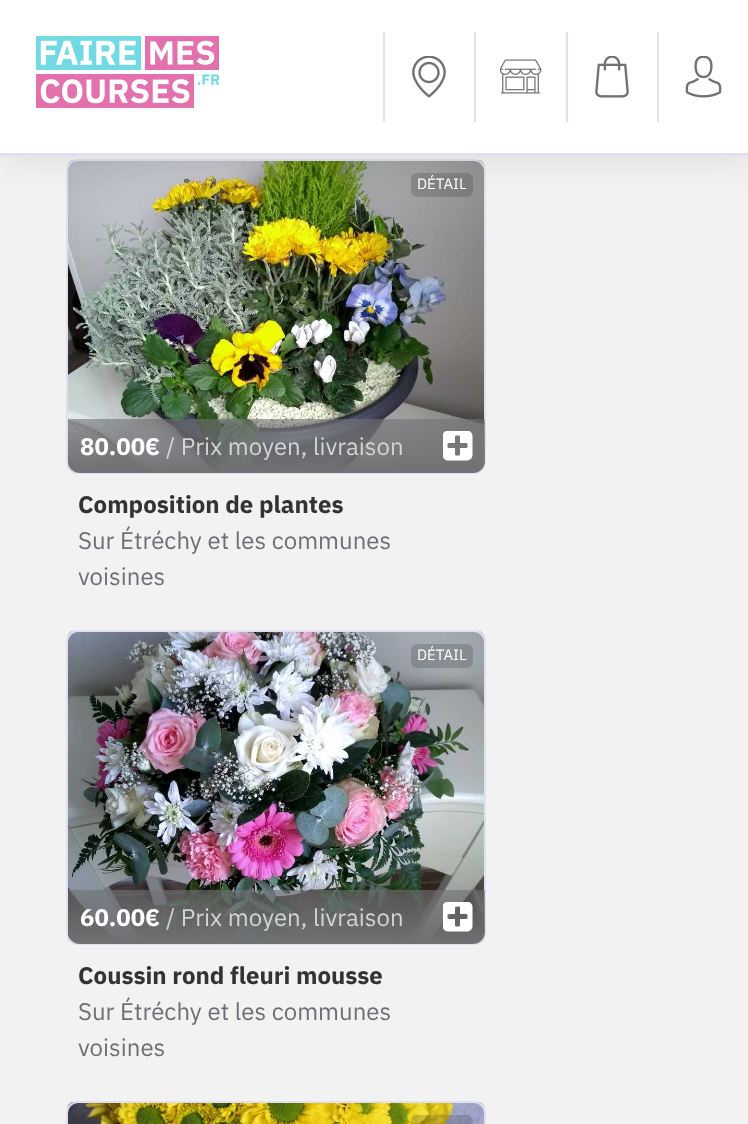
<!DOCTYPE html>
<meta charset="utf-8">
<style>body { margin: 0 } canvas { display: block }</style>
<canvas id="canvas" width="748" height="1124"></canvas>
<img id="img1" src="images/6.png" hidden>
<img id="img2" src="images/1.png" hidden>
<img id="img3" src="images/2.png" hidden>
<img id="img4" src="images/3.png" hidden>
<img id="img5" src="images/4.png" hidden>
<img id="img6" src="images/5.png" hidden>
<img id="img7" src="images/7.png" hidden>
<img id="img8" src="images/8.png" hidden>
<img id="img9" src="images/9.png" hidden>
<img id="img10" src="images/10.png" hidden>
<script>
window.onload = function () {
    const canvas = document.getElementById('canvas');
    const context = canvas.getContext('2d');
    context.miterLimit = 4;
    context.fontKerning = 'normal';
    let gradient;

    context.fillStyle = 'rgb(242, 242, 242)';
    context.fillRect(0, 0, 748, 1124);
    context.drawImage(document.getElementById('img1'), 67, 160, 418, 314);
    context.beginPath();
    context.roundRect(67, 160, 418, 313, 11);
    context.strokeStyle = 'rgb(224, 224, 238)';
    context.lineWidth = 2;
    context.stroke();
    context.fillStyle = 'rgba(33, 33, 33, 0.2)';
    context.beginPath();
    context.roundRect(411, 173, 62, 24, 6);
    context.fill();
    context.fillStyle = 'rgba(33, 33, 33, 0.1)';
    context.filter = 'blur(18px)';
    context.beginPath();
    context.rect(0, 0, 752, 159);
    context.fill();
    context.filter = 'none';
    context.fillStyle = 'rgb(255, 255, 255)';
    context.fillRect(0, 0, 748, 153);
    context.fillStyle = 'rgb(224, 224, 238)';
    context.fillRect(0, 153, 748, 3);
    context.drawImage(document.getElementById('img2'), 36, 36, 183, 72);
    context.fillRect(383, 32, 2, 90);
    context.drawImage(document.getElementById('img3'), 412, 56, 34, 42);
    context.fillRect(474, 32, 2, 90);
    context.drawImage(document.getElementById('img4'), 500, 59, 42, 35);
    context.fillRect(566, 32, 2, 90);
    context.drawImage(document.getElementById('img5'), 595, 56, 34, 42);
    context.fillRect(657, 32, 2, 90);
    context.drawImage(document.getElementById('img6'), 685, 56, 37, 42);
    gradient = context.createLinearGradient(276, 419, 276, 473);
    gradient.addColorStop(0, 'rgba(112, 113, 115, 0.6)');
    gradient.addColorStop(1, 'rgb(112, 113, 115)');
    context.fillStyle = gradient;
    context.beginPath();
    context.roundRect(68, 419, 417, 54, [0, 0, 12, 12]);
    context.fill();
    context.drawImage(document.getElementById('img7'), 443, 431, 30, 30);
    context.drawImage(document.getElementById('img8'), 67, 631, 418, 314);
    context.beginPath();
    context.roundRect(67, 631, 418, 313, 11);
    context.stroke();
    context.fillStyle = 'rgba(33, 33, 33, 0.2)';
    context.beginPath();
    context.roundRect(411, 644, 62, 24, 6);
    context.fill();
    gradient = context.createLinearGradient(276, 890, 276, 944);
    gradient.addColorStop(0, 'rgba(112, 113, 115, 0.6)');
    gradient.addColorStop(1, 'rgb(112, 113, 115)');
    context.fillStyle = gradient;
    context.beginPath();
    context.roundRect(68, 890, 417, 54, [0, 0, 12, 12]);
    context.fill();
    context.drawImage(document.getElementById('img9'), 443, 902, 30, 30);
    context.drawImage(document.getElementById('img10'), 67, 1102, 418, 22);
    context.beginPath();
    context.roundRect(67, 1102, 418, 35, 11);
    context.stroke();
    context.fillStyle = 'rgba(33, 33, 33, 0.2)';
    context.beginPath();
    context.roundRect(411, 1115, 62, 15, 6);
    context.fill();
    context.font = '15px IBM Plex Sans';
    context.fillStyle = 'rgb(255, 255, 255)';
    context.fillText('DÉTAIL', 417, 189);
    context.font = 'bold 24px IBM Plex Sans';
    context.fillText('80.00€', 80, 455);
    context.font = '24px IBM Plex Sans';
    context.fillStyle = 'rgb(211, 212, 213)';
    context.fillText('/ Prix moyen, livraison', 166, 455);
    context.font = 'bold 24px IBM Plex Sans';
    context.fillStyle = 'rgb(51, 51, 51)';
    context.fillText('Composition de plantes', 78, 513);
    context.font = '24px IBM Plex Sans';
    context.fillStyle = 'rgb(108, 111, 117)';
    context.fillText('Sur Étréchy et les communes', 78, 549);
    context.fillText('voisines', 78, 585);
    context.font = '15px IBM Plex Sans';
    context.fillStyle = 'rgb(255, 255, 255)';
    context.fillText('DÉTAIL', 417, 660);
    context.font = 'bold 24px IBM Plex Sans';
    context.fillText('60.00€', 80, 926);
    context.font = '24px IBM Plex Sans';
    context.fillStyle = 'rgb(211, 212, 213)';
    context.fillText('/ Prix moyen, livraison', 166, 926);
    context.font = 'bold 24px IBM Plex Sans';
    context.fillStyle = 'rgb(51, 51, 51)';
    context.fillText('Coussin rond fleuri mousse', 78, 984);
    context.font = '24px IBM Plex Sans';
    context.fillStyle = 'rgb(108, 111, 117)';
    context.fillText('Sur Étréchy et les communes', 78, 1020);
    context.fillText('voisines', 78, 1056);
};
</script>
